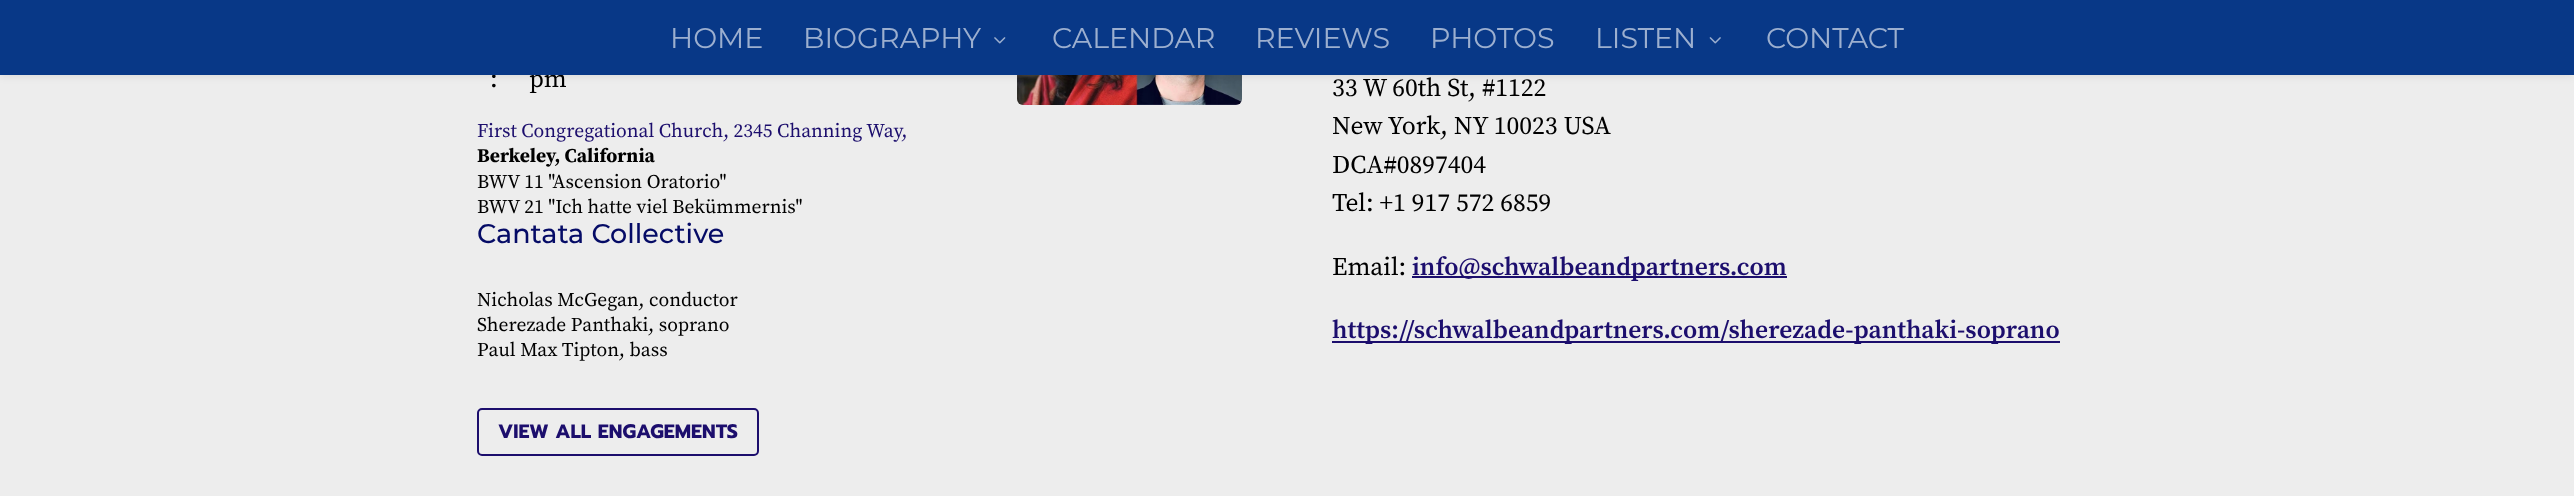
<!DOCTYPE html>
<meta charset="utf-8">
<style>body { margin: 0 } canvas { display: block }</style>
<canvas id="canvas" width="2574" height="496"></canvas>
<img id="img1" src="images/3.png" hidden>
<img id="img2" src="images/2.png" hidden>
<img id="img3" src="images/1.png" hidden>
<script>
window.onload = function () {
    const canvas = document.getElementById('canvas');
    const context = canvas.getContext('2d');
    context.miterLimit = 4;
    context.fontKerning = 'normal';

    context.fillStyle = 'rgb(237, 237, 237)';
    context.fillRect(0, 0, 2574, 496);
    context.drawImage(document.getElementById('img1'), 1017, 75, 225, 30);
    context.fillStyle = 'rgba(0, 0, 0, 0.1)';
    context.filter = 'blur(5px)';
    context.beginPath();
    context.rect(0, 0, 2574, 75);
    context.fill();
    context.filter = 'none';
    context.beginPath();
    context.roundRect(478, 409, 280, 46, 4);
    context.strokeStyle = 'rgb(28, 14, 109)';
    context.lineWidth = 2;
    context.stroke();
    context.fillStyle = 'rgb(28, 14, 109)';
    context.fillRect(1412, 276, 375, 2);
    context.fillRect(1332, 341, 728, 2);
    context.font = '25.5px Source Serif Pro';
    context.fillStyle = 'rgb(0, 0, 0)';
    context.fillText(':', 490, 87);
    context.fillText('pm', 529, 87);
    context.fillStyle = 'rgb(8, 56, 135)';
    context.fillRect(0, 0, 2574, 75);
    context.font = '28.5px Montserrat';
    context.fillStyle = 'rgb(156, 175, 207)';
    context.fillText('CONTACT', 1766, 48);
    context.drawImage(document.getElementById('img2'), 1709, 37, 12, 7);
    context.fillText('LISTEN', 1595, 48);
    context.fillText('PHOTOS', 1430, 48);
    context.fillText('REVIEWS', 1255, 48);
    context.fillText('CALENDAR', 1052, 48);
    context.drawImage(document.getElementById('img3'), 994, 37, 12, 7);
    context.fillText('BIOGRAPHY', 803, 48);
    context.fillText('HOME', 670, 48);
    context.font = '19.5px Source Serif Pro';
    context.fillStyle = 'rgb(28, 14, 109)';
    context.fillText('First Congregational Church, 2345 Channing Way,', 477, 137);
    context.font = 'bold 19.5px Source Serif Pro';
    context.fillStyle = 'rgb(0, 0, 0)';
    context.fillText('Berkeley, California', 477, 162);
    context.font = '19.5px Source Serif Pro';
    context.fillText('BWV 11 "Ascension Oratorio"', 477, 188);
    context.fillText('BWV 21 "Ich hatte viel Bekümmernis"', 477, 213);
    context.font = '500 27px Montserrat';
    context.fillStyle = 'rgb(5, 11, 102)';
    context.fillText('Cantata Collective', 477, 243);
    context.font = '19.5px Source Serif Pro';
    context.fillStyle = 'rgb(0, 0, 0)';
    context.fillText('Nicholas McGegan, conductor', 477, 306);
    context.fillText('Sherezade Panthaki, soprano', 477, 331);
    context.fillText('Paul Max Tipton, bass', 477, 356);
    context.font = 'bold 19.5px Prompt';
    context.fillStyle = 'rgb(28, 14, 109)';
    context.fillText('VIEW ALL ENGAGEMENTS', 498, 438);
    context.font = '25.5px Source Serif Pro';
    context.fillStyle = 'rgb(0, 0, 0)';
    context.fillText('33 W 60th St, #1122', 1332, 96);
    context.fillText('New York, NY 10023 USA', 1332, 134);
    context.fillText('DCA#0897404', 1332, 173);
    context.fillText('Tel: +1 917 572 6859', 1332, 211);
    context.fillText('Email:', 1332, 275);
    context.font = '600 25.5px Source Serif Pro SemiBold';
    context.fillStyle = 'rgb(28, 14, 109)';
    context.fillText('info@schwalbeandpartners.com', 1412, 275);
    context.fillText('https://schwalbeandpartners.com/sherezade-panthaki-soprano', 1332, 338);
};
</script>
